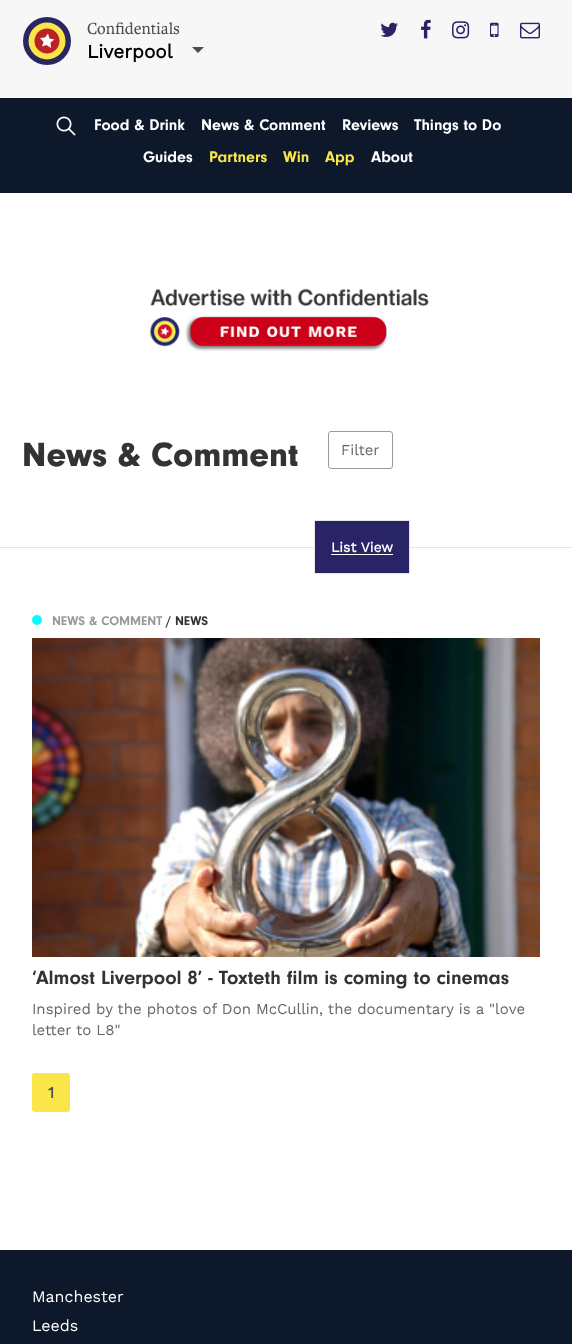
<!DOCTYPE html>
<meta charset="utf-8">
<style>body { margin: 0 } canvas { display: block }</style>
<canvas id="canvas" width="572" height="1344"></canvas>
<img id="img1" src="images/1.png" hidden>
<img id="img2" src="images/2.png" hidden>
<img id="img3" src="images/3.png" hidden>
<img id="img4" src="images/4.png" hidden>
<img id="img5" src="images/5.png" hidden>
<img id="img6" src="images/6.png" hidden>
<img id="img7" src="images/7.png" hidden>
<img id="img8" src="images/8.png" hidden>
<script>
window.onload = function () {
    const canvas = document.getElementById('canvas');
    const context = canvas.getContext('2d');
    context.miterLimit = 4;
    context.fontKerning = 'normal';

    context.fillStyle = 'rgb(255, 255, 255)';
    context.fillRect(0, 0, 572, 1344);
    context.fillStyle = 'rgb(247, 247, 247)';
    context.fillRect(0, 0, 572, 98);
    context.fillStyle = 'rgb(40, 39, 98)';
    context.beginPath();
    context.arc(47, 41, 24, 0, 2 * Math.PI);
    context.fill();
    context.fillStyle = 'rgb(251, 230, 73)';
    context.beginPath();
    context.arc(47, 41, 18.5, 0, 2 * Math.PI);
    context.fill();
    context.fillStyle = 'rgb(185, 35, 39)';
    context.beginPath();
    context.arc(47, 41, 12.5, 0, 2 * Math.PI);
    context.fill();
    context.fillStyle = 'rgb(255, 255, 255)';
    context.beginPath();
    context.moveTo(45, 37.5);
    context.lineTo(48, 33.5);
    context.lineTo(49.5, 38.5);
    context.lineTo(54.5, 39.5);
    context.lineTo(50.5, 42.5);
    context.lineTo(51, 48);
    context.lineTo(46.5, 45);
    context.lineTo(42, 46.5);
    context.lineTo(43.5, 42);
    context.lineTo(40, 38);
    context.fill();
    context.fillStyle = 'rgb(77, 77, 77)';
    context.beginPath();
    context.moveTo(192, 47);
    context.lineTo(204, 47);
    context.lineTo(198, 53);
    context.closePath();
    context.fill();
    context.drawImage(document.getElementById('img1'), 380, 22, 18, 15);
    context.drawImage(document.getElementById('img2'), 421, 19, 10, 20);
    context.drawImage(document.getElementById('img3'), 452, 21, 18, 18);
    context.drawImage(document.getElementById('img4'), 490, 22, 9, 15);
    context.drawImage(document.getElementById('img5'), 520, 22, 20, 17);
    context.fillStyle = 'rgb(13, 24, 42)';
    context.fillRect(0, 98, 572, 95);
    context.drawImage(document.getElementById('img6'), 56, 116, 20, 20);
    context.drawImage(document.getElementById('img7'), 149, 288, 280, 63);
    context.beginPath();
    context.roundRect(328.5, 431.5, 64, 37, 2.5);
    context.strokeStyle = 'rgb(153, 153, 153)';
    context.stroke();
    context.fillStyle = 'rgb(230, 230, 230)';
    context.fillRect(0, 547, 572, 1);
    context.strokeStyle = 'rgb(230, 230, 230)';
    context.strokeRect(314.5, 520.5, 95, 53);
    context.fillStyle = 'rgb(41, 36, 102)';
    context.fillRect(315, 521, 94, 52);
    context.fillStyle = 'rgb(255, 255, 255)';
    context.fillRect(331, 554, 62, 1);
    context.fillStyle = 'rgb(0, 255, 255)';
    context.beginPath();
    context.arc(37, 620, 5, 0, 2 * Math.PI);
    context.fill();
    context.drawImage(document.getElementById('img8'), 32, 638, 508, 319);
    context.fillStyle = 'rgb(251, 230, 74)';
    context.beginPath();
    context.roundRect(32, 1073, 38, 39, 3);
    context.fill();
    context.fillStyle = 'rgb(13, 24, 42)';
    context.fillRect(0, 1250, 572, 94);
    context.font = '17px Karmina';
    context.fillStyle = 'rgb(77, 77, 77)';
    context.fillText('Confidentials', 87, 34);
    context.font = 'bold 19px Work Sans';
    context.fillStyle = 'rgb(0, 0, 0)';
    context.fillText('Liverpool', 87, 58);
    context.font = 'bold 16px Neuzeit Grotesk';
    context.fillStyle = 'rgb(255, 255, 255)';
    context.fillText('Food & Drink', 94, 130);
    context.fillText('News & Comment', 201, 130);
    context.fillText('Reviews', 342, 130);
    context.fillText('Things to Do', 414, 130);
    context.fillText('Guides', 143, 162);
    context.fillStyle = 'rgb(251, 230, 74)';
    context.fillText('Partners', 209, 162);
    context.fillText('Win', 283, 162);
    context.fillText('App', 325, 162);
    context.fillStyle = 'rgb(255, 255, 255)';
    context.fillText('About', 371, 162);
    context.font = '900 35px Neuzeit Grotesk';
    context.fillStyle = 'rgb(51, 51, 51)';
    context.fillText('News & Comment', 22, 466);
    context.font = '15px Work Sans';
    context.fillStyle = 'rgb(102, 102, 102)';
    context.fillText('Filter', 341, 455);
    context.font = 'bold 14px Work Sans';
    context.fillStyle = 'rgb(255, 255, 255)';
    context.fillText('List View', 331, 552);
    context.font = 'bold 13px Neuzeit Grotesk';
    context.fillStyle = 'rgb(153, 153, 153)';
    context.fillText('NEWS & COMMENT', 52, 625);
    context.fillStyle = 'rgb(51, 51, 51)';
    context.fillText('/ NEWS', 166, 625);
    context.font = 'bold 20px Neuzeit Grotesk';
    context.fillText('‘Almost Liverpool 8’ - Toxteth film is coming to cinemas', 32, 984);
    context.font = '15px Work Sans';
    context.fillStyle = 'rgb(102, 102, 102)';
    context.fillText('Inspired by the photos of Don McCullin, the documentary is a "love', 32, 1014);
    context.fillText('letter to L8"', 32, 1035);
    context.font = 'bold 16px Work Sans';
    context.fillStyle = 'rgb(77, 77, 77)';
    context.fillText('1', 48, 1098);
    context.font = '16px Work Sans';
    context.fillStyle = 'rgb(255, 255, 255)';
    context.fillText('Manchester', 32, 1302);
    context.fillText('Leeds', 32, 1331);
};
</script>
